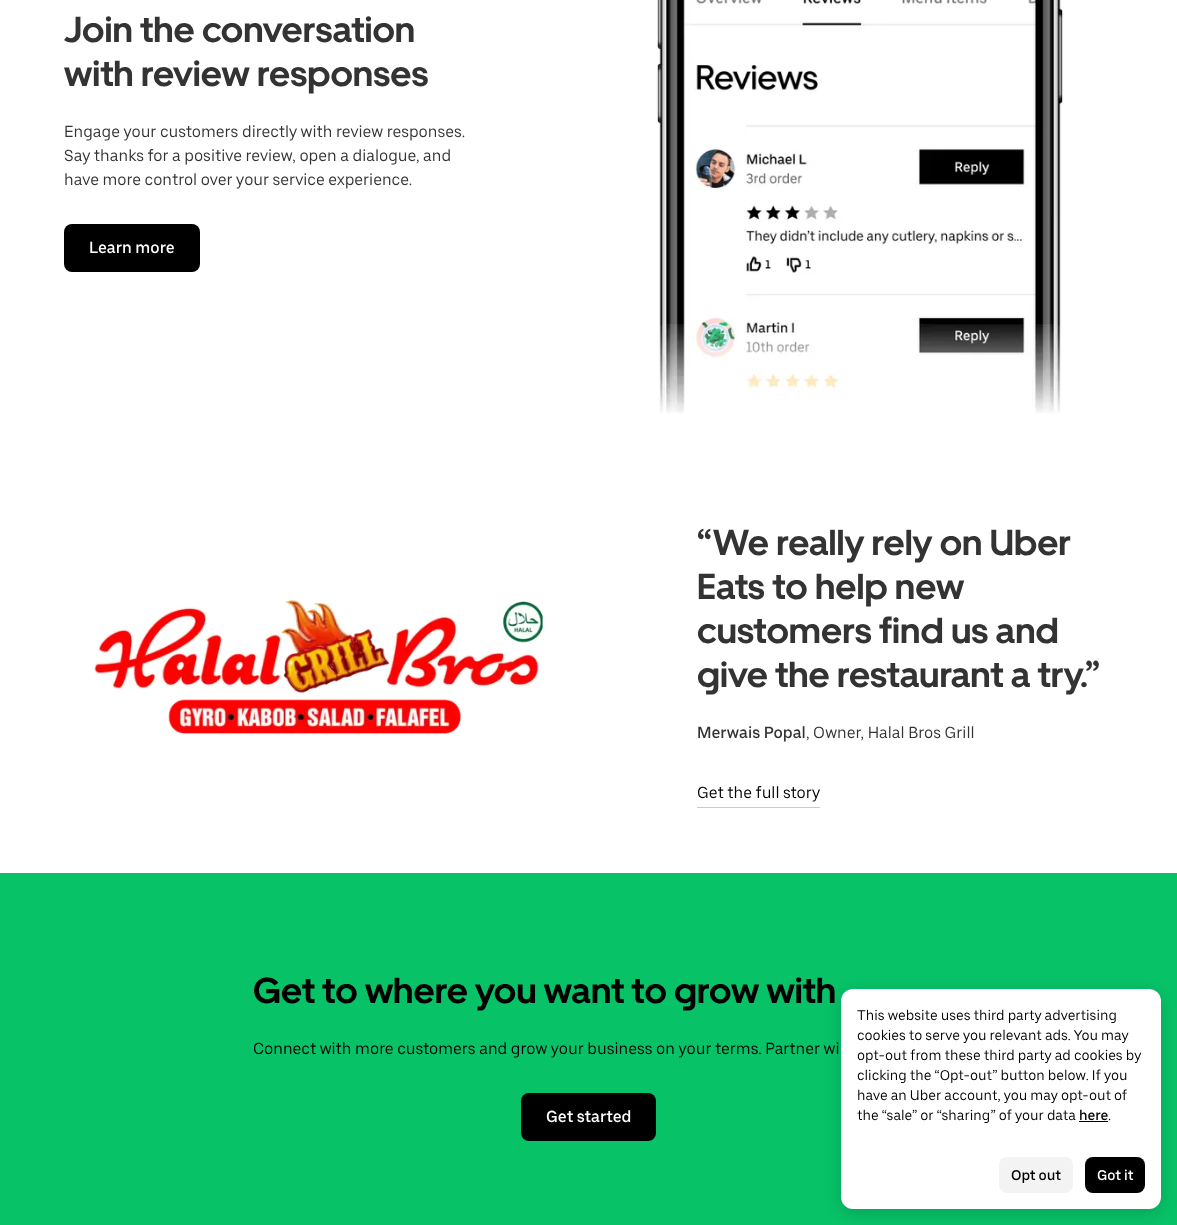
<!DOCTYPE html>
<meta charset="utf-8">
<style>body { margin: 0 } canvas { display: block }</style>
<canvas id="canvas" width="1177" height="1225"></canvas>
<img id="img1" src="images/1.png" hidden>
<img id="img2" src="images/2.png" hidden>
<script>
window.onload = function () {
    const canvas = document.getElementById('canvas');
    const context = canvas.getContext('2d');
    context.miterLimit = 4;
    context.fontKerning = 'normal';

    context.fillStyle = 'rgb(255, 255, 255)';
    context.fillRect(0, 0, 1177, 1225);
    context.fillStyle = 'rgb(0, 0, 0)';
    context.beginPath();
    context.roundRect(64, 224, 136, 48, 8);
    context.fill();
    context.drawImage(document.getElementById('img1'), 656, 0, 408, 414);
    context.drawImage(document.getElementById('img2'), 94, 599, 449, 135);
    context.fillStyle = 'rgb(203, 203, 203)';
    context.fillRect(697, 807, 123, 1);
    context.fillStyle = 'rgb(8, 194, 104)';
    context.fillRect(0, 873, 1177, 352);
    context.fillStyle = 'rgb(0, 0, 0)';
    context.beginPath();
    context.roundRect(521, 1093, 135, 48, 8);
    context.fill();
    context.fillStyle = 'rgba(0, 0, 0, 0.16)';
    context.filter = 'blur(8px)';
    context.beginPath();
    context.roundRect(841, 993, 320, 220, 12);
    context.fill();
    context.filter = 'none';
    context.fillStyle = 'rgb(255, 255, 255)';
    context.beginPath();
    context.roundRect(841, 989, 320, 220, 12);
    context.fill();
    context.fillStyle = 'rgb(0, 0, 0)';
    context.fillRect(1079, 1121, 29, 1);
    context.fillStyle = 'rgb(243, 243, 243)';
    context.beginPath();
    context.roundRect(999, 1157, 74, 36, 8);
    context.fill();
    context.fillStyle = 'rgb(0, 0, 0)';
    context.beginPath();
    context.roundRect(1085, 1157, 60, 36, 8);
    context.fill();
    context.font = 'bold 36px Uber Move';
    context.fillStyle = 'rgb(51, 51, 51)';
    context.fillText('Join the conversation', 64, 42);
    context.fillText('with review responses', 64, 86);
    context.font = '16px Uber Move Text';
    context.fillText('Engage your customers directly with review responses.', 64, 137);
    context.fillText('Say thanks for a positive review, open a dialogue, and', 64, 161);
    context.fillText('have more control over your service experience.', 64, 185);
    context.font = '500 16px Uber Move Text';
    context.fillStyle = 'rgb(255, 255, 255)';
    context.fillText('Learn more', 89, 253);
    context.font = 'bold 36px Uber Move';
    context.fillStyle = 'rgb(51, 51, 51)';
    context.fillText('“We really rely on Uber', 697, 555);
    context.fillText('Eats to help new', 697, 599);
    context.fillText('customers find us and', 697, 643);
    context.fillText('give the restaurant a try.”', 697, 687);
    context.font = '500 16px Uber Move Text';
    context.fillText('Merwais Popal', 697, 738);
    context.font = '16px Uber Move Text';
    context.fillText(', Owner, Halal Bros Grill', 806, 738);
    context.fillStyle = 'rgb(0, 0, 0)';
    context.fillText('Get the full story', 697, 798);
    context.font = 'bold 36px Uber Move';
    context.fillText('Get to where you want to grow with', 253, 1003);
    context.font = '16px Uber Move Text';
    context.fillText('Connect with more customers and grow your business on your terms. Partner wi', 253, 1054);
    context.font = '500 16px Uber Move Text';
    context.fillStyle = 'rgb(255, 255, 255)';
    context.fillText('Get started', 546, 1122);
    context.font = '14px Uber Move Text';
    context.fillStyle = 'rgb(0, 0, 0)';
    context.fillText('This website uses third party advertising', 857, 1020);
    context.fillText('cookies to serve you relevant ads. You may', 857, 1040);
    context.fillText('opt-out from these third party ad cookies by', 857, 1060);
    context.fillText('clicking the “Opt-out” button below. If you', 857, 1080);
    context.fillText('have an Uber account, you may opt-out of', 857, 1100);
    context.fillText('the “sale” or “sharing” of your data', 857, 1120);
    context.font = '500 14px Uber Move Text';
    context.fillText('here', 1079, 1120);
    context.font = '14px Uber Move Text';
    context.fillText('.', 1108, 1120);
    context.font = '500 14px Uber Move Text';
    context.fillText('Opt out', 1011, 1180);
    context.fillStyle = 'rgb(255, 255, 255)';
    context.fillText('Got it', 1097, 1180);
};
</script>
